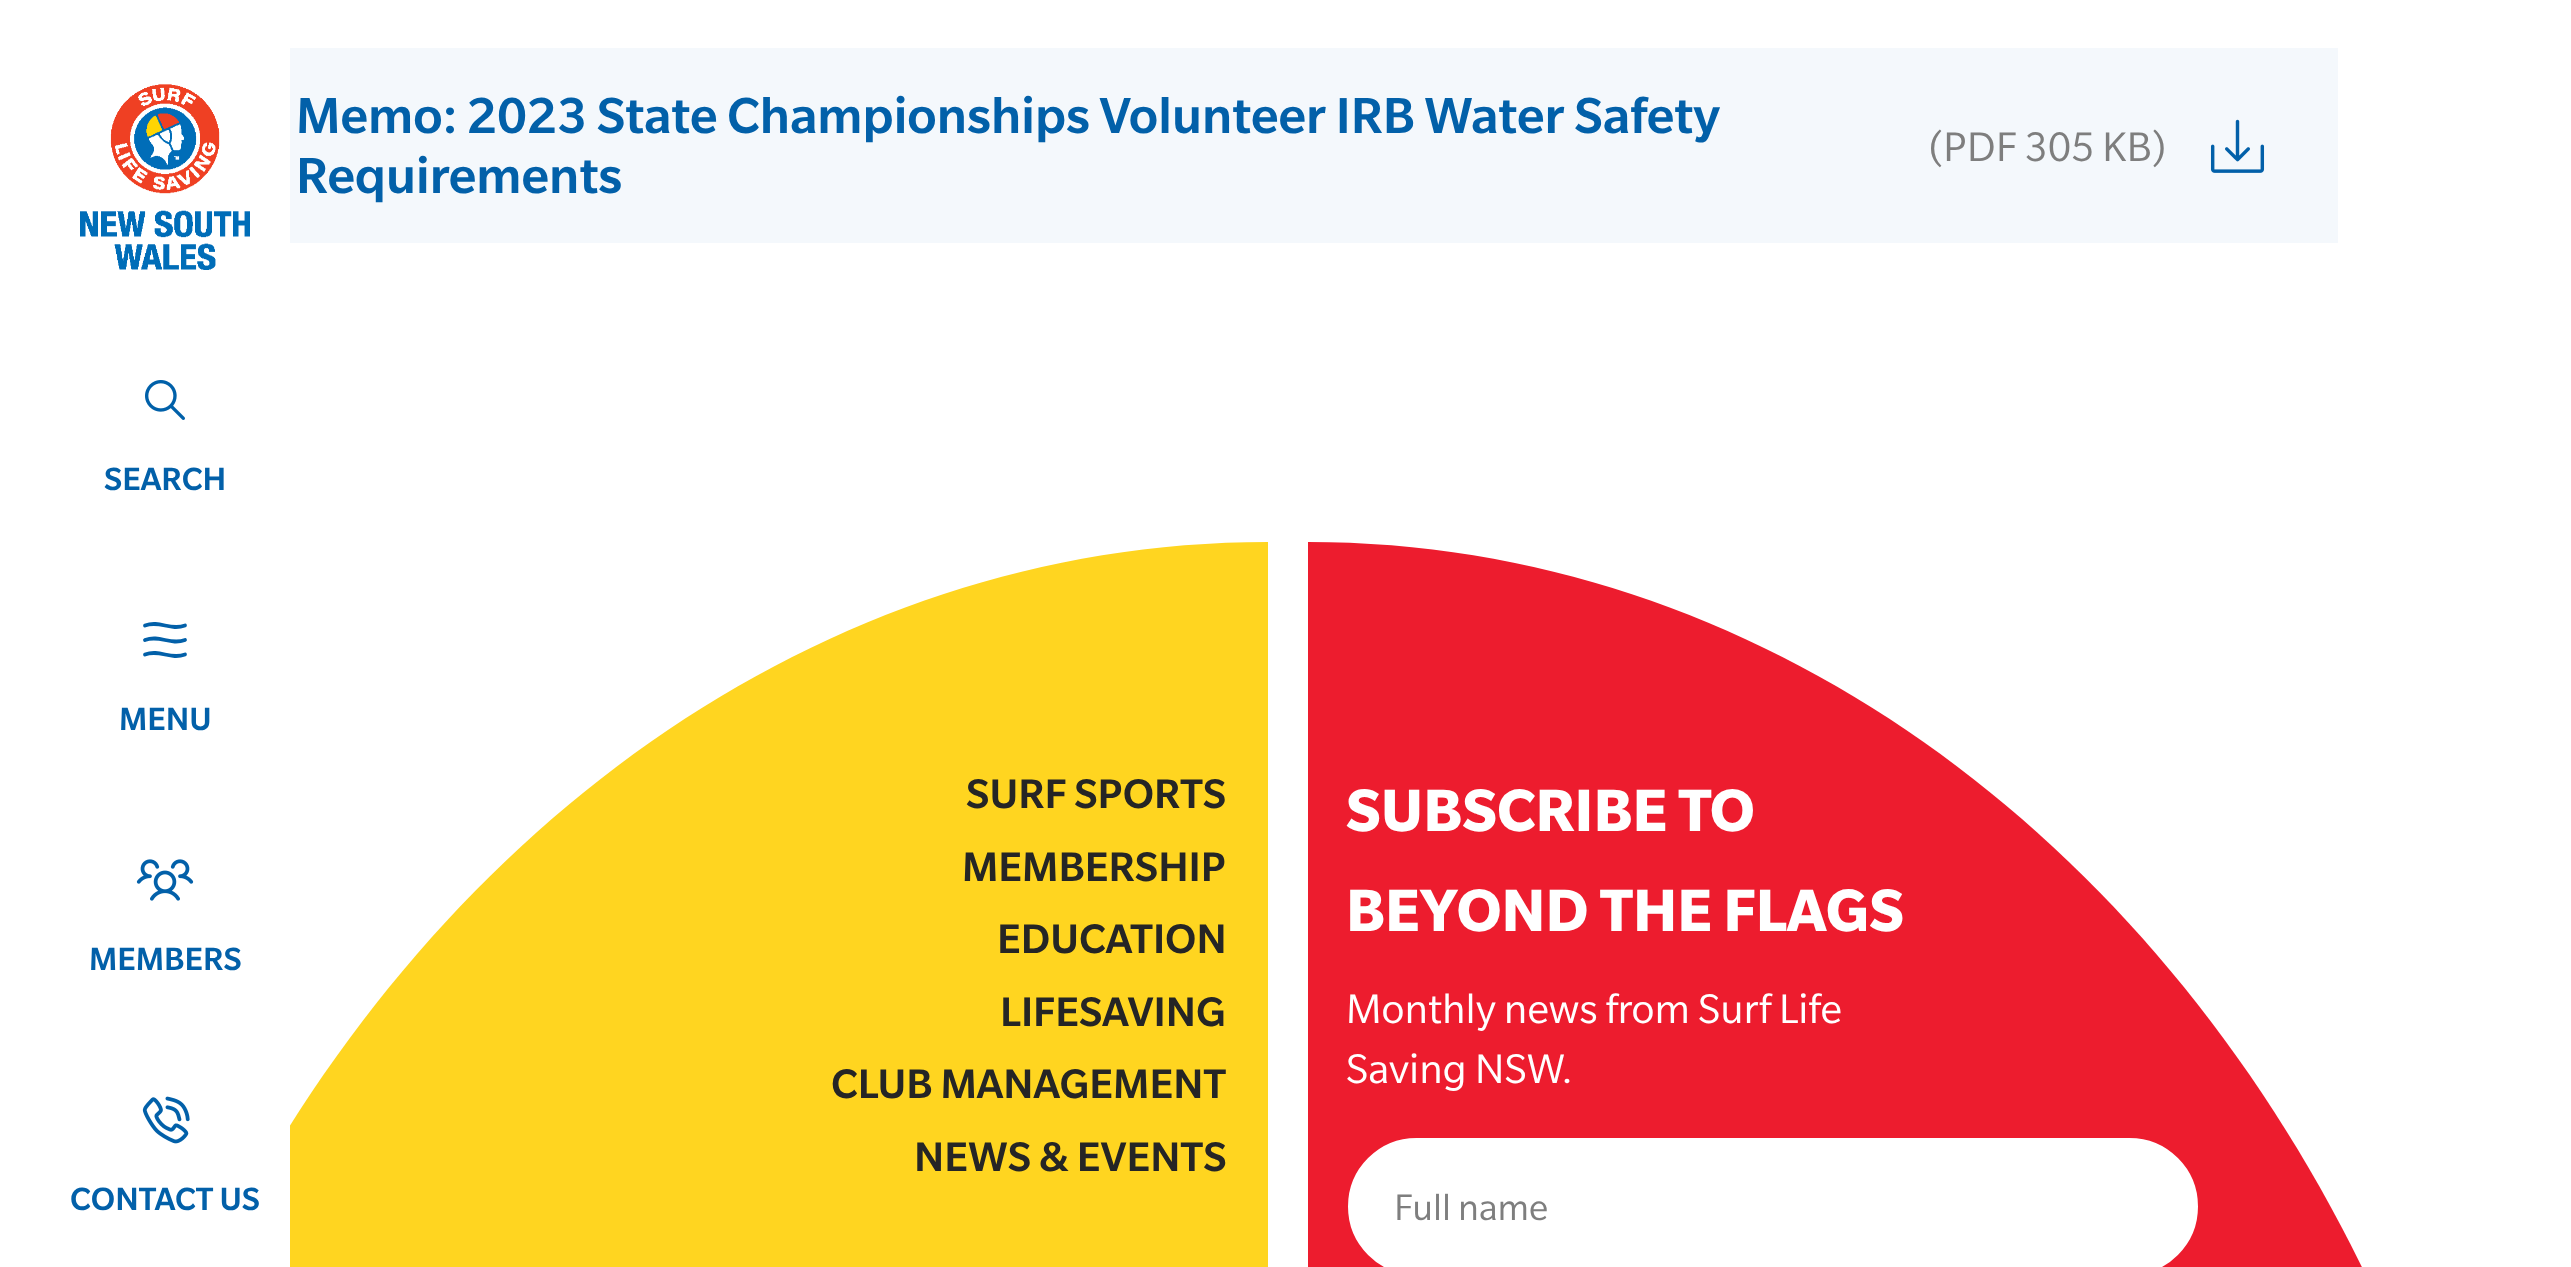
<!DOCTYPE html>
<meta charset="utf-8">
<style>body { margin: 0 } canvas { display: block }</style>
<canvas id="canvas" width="2571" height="1267"></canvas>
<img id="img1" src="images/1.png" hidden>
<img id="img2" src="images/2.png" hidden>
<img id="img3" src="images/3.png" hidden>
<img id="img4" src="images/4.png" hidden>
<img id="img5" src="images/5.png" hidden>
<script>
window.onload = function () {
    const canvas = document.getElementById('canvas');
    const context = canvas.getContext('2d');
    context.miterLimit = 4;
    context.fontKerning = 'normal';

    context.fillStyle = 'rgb(255, 255, 255)';
    context.fillRect(0, 0, 2571, 1267);
    context.fillStyle = 'rgb(244, 248, 252)';
    context.fillRect(290, 48, 2048, 195);
    context.drawImage(document.getElementById('img1'), 2210, 119, 55, 54);
    context.fillStyle = 'rgb(255, 213, 32)';
    context.beginPath();
    context.moveTo(1268, 542);
    context.lineTo(1268, 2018);
    context.lineTo(40, 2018);
    context.bezierCurveTo(40, 1203, 590, 542, 1268, 542);
    context.closePath();
    context.fill();
    context.fillStyle = 'rgb(255, 255, 255)';
    context.fillRect(210, 1125, 80, 142);
    context.drawImage(document.getElementById('img2'), 80, 84, 170, 186);
    context.drawImage(document.getElementById('img3'), 145, 380, 40, 40);
    context.beginPath();
    context.moveTo(145, 625.5);
    context.bezierCurveTo(160, 620, 170, 631, 185, 625.5);
    context.moveTo(145, 640);
    context.bezierCurveTo(160, 634.5, 170, 645.5, 185, 640);
    context.moveTo(145, 654.5);
    context.bezierCurveTo(160, 649, 170, 660, 185, 654.5);
    context.strokeStyle = 'rgb(2, 96, 169)';
    context.lineWidth = 3.8;
    context.lineCap = 'round';
    context.lineJoin = 'round';
    context.stroke();
    context.drawImage(document.getElementById('img4'), 136, 859, 58, 42);
    context.drawImage(document.getElementById('img5'), 142, 1096, 48, 48);
    context.fillStyle = 'rgb(237, 28, 46)';
    context.beginPath();
    context.moveTo(1308, 542);
    context.bezierCurveTo(1984, 542, 2532, 1203, 2532, 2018);
    context.lineTo(1308, 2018);
    context.closePath();
    context.fill();
    context.fillStyle = 'rgb(255, 255, 255)';
    context.beginPath();
    context.roundRect(1349.5, 1139.5, 847, 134, 67);
    context.fill();
    context.strokeStyle = 'rgb(255, 255, 255)';
    context.lineWidth = 3;
    context.lineJoin = 'miter';
    context.stroke();
    context.font = '500 55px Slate';
    context.fillStyle = 'rgb(2, 96, 169)';
    context.fillText('Memo: 2023 State Championships Volunteer IRB Water Safety', 296, 133);
    context.fillText('Requirements', 296, 193);
    context.font = '45px Slate';
    context.fillStyle = 'rgb(126, 126, 126)';
    context.fillText('(PDF 305 KB)', 1929, 161);
    context.font = '500 35px Slate';
    context.fillStyle = 'rgb(2, 96, 169)';
    context.fillText('SEARCH', 104, 490);
    context.fillText('MENU', 119, 730);
    context.fillText('MEMBERS', 89, 970);
    context.fillText('CONTACT US', 70, 1210);
    context.font = '500 45px Slate';
    context.fillStyle = 'rgb(37, 37, 37)';
    context.fillText('SURF SPORTS', 966, 808);
    context.fillText('MEMBERSHIP', 962, 881);
    context.fillText('EDUCATION', 997, 953);
    context.fillText('LIFESAVING', 1000, 1026);
    context.fillText('CLUB MANAGEMENT', 831, 1098);
    context.fillText('NEWS & EVENTS', 914, 1171);
    context.font = 'bold 65px Slate';
    context.fillStyle = 'rgb(255, 255, 255)';
    context.fillText('SUBSCRIBE TO', 1346, 831);
    context.fillText('BEYOND THE FLAGS', 1346, 931);
    context.font = '45px Slate';
    context.fillText('Monthly news from Surf Life', 1346, 1023);
    context.fillText('Saving NSW.', 1346, 1083);
    context.font = '40px Slate';
    context.fillStyle = 'rgb(126, 126, 126)';
    context.fillText('Full name', 1394, 1220);
};
</script>
